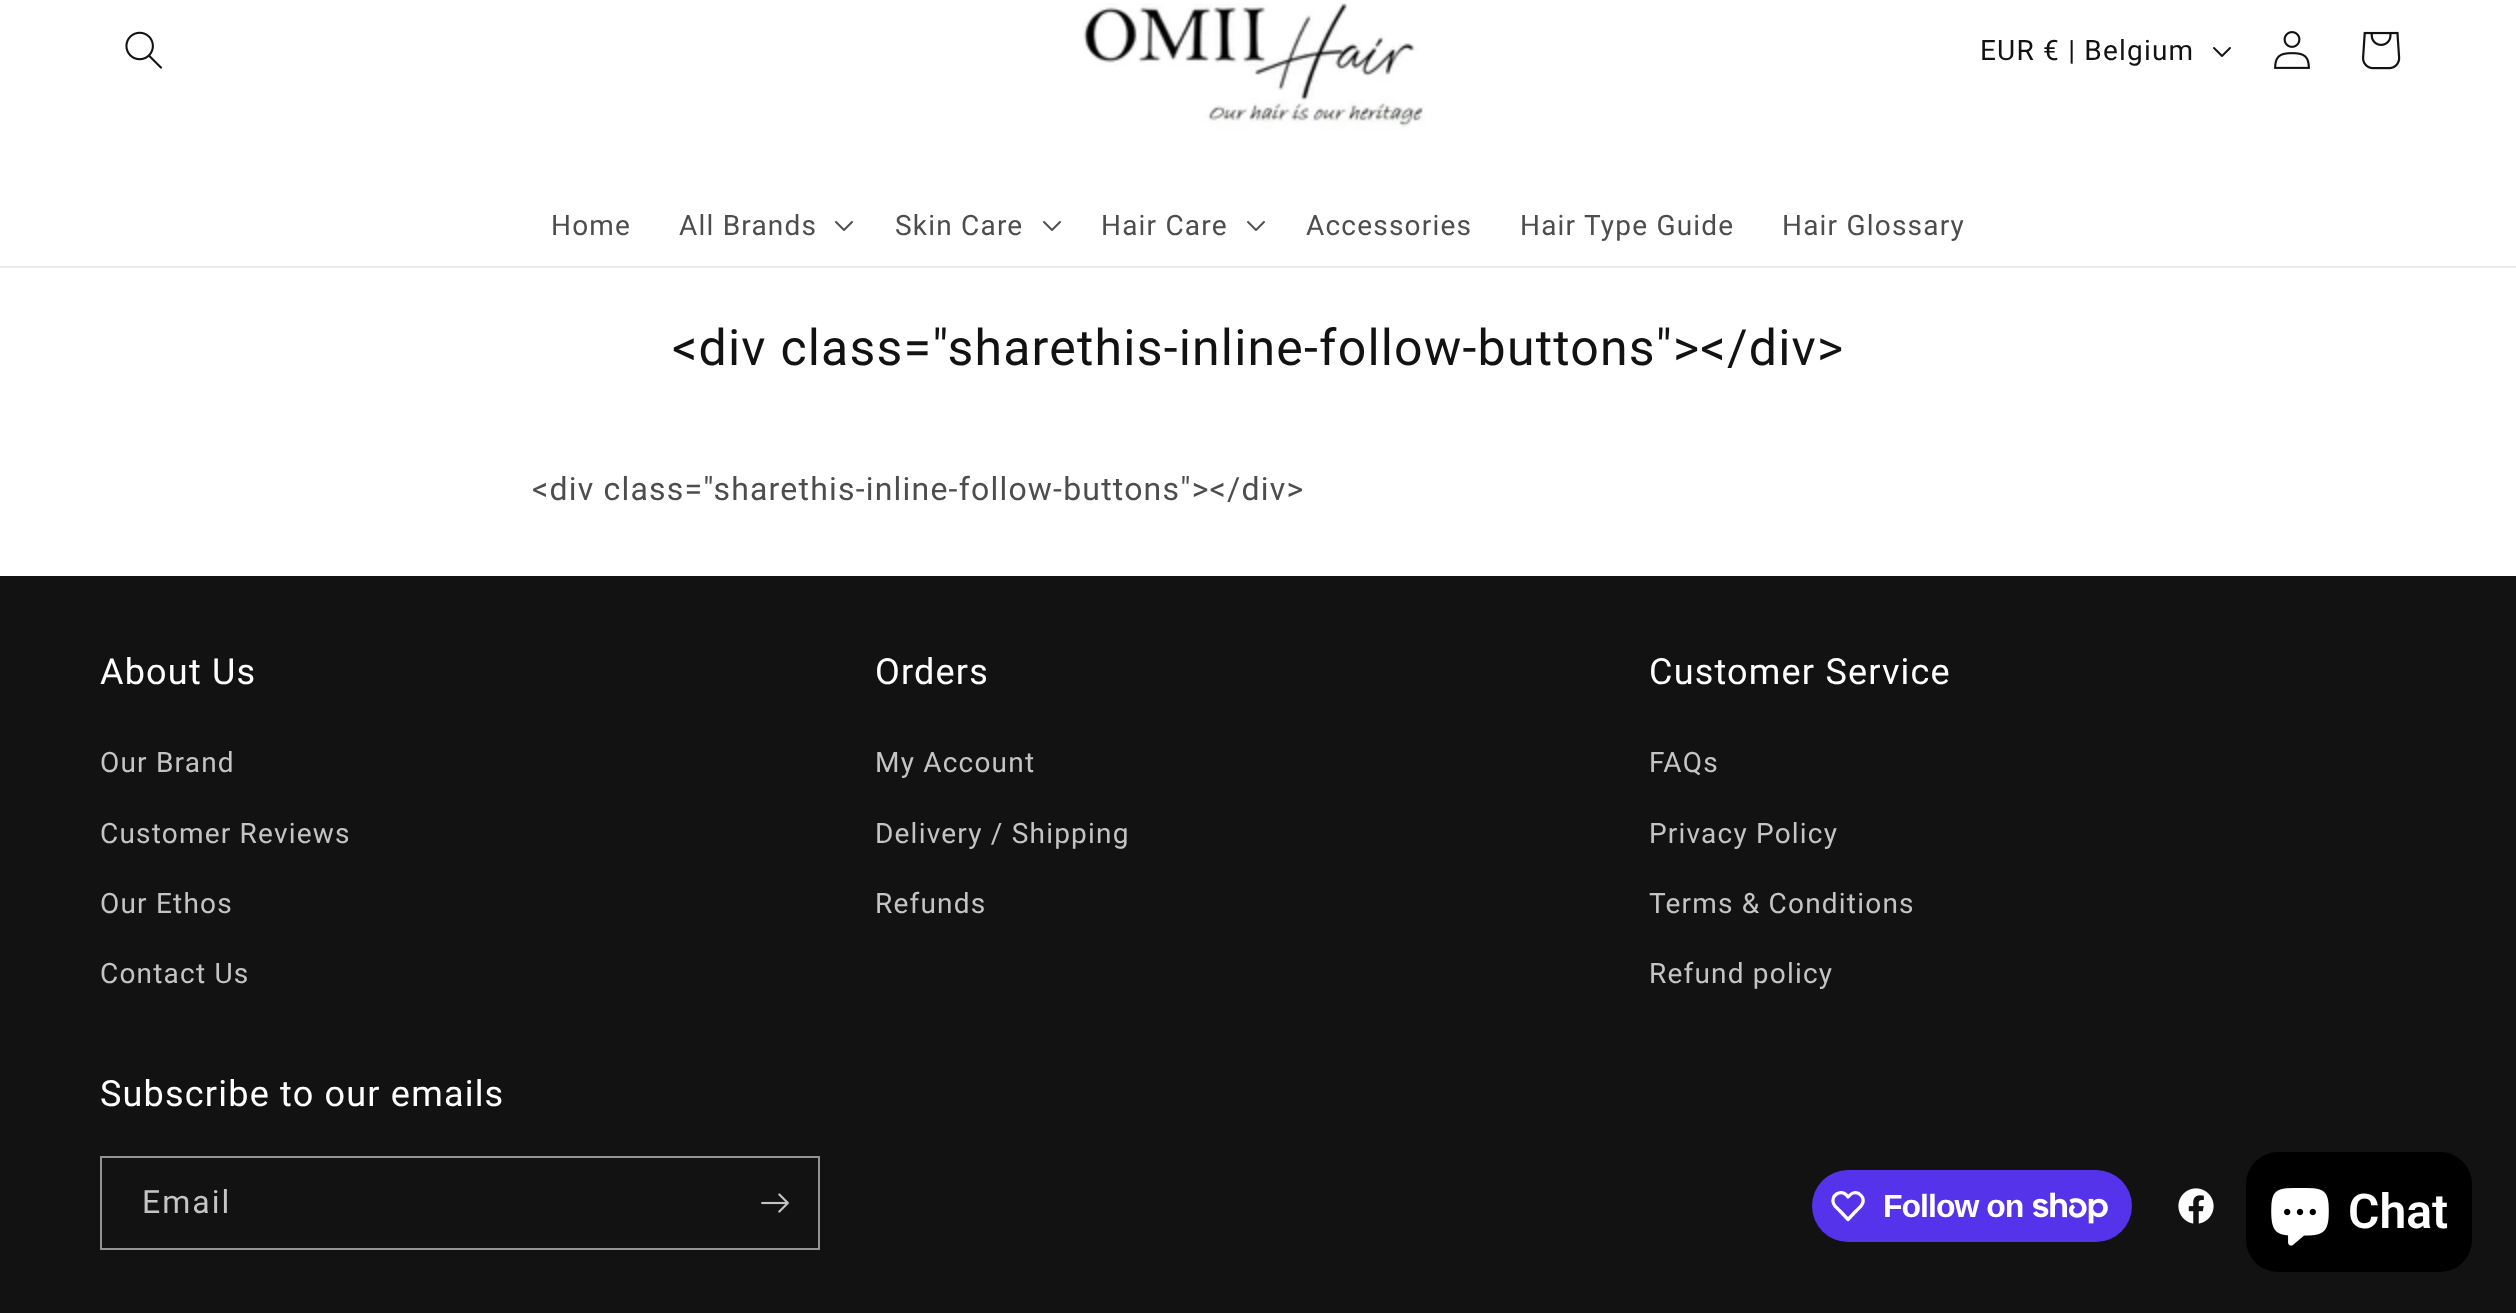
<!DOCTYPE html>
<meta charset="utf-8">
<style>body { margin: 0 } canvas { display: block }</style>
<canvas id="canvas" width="2516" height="1313"></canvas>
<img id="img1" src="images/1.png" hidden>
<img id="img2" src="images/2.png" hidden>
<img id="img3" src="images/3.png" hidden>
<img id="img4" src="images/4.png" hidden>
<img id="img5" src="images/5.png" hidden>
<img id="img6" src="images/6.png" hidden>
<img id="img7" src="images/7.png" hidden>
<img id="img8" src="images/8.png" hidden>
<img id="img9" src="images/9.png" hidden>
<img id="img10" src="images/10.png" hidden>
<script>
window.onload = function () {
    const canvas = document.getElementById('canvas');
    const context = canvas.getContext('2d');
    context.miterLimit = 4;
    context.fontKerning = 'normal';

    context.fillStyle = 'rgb(255, 255, 255)';
    context.fillRect(0, 0, 2516, 1313);
    context.fillStyle = 'rgb(236, 236, 236)';
    context.fillRect(0, 266, 2516, 2);
    context.drawImage(document.getElementById('img1'), 125, 31, 37, 38);
    context.drawImage(document.getElementById('img2'), 1082, 3, 344, 127);
    context.drawImage(document.getElementById('img3'), 2213, 47, 18, 10);
    context.drawImage(document.getElementById('img4'), 2274, 31, 36, 38);
    context.drawImage(document.getElementById('img5'), 2362, 31, 39, 39);
    context.drawImage(document.getElementById('img6'), 835, 221, 18, 10);
    context.drawImage(document.getElementById('img6'), 1043, 221, 18, 10);
    context.drawImage(document.getElementById('img6'), 1247, 221, 18, 10);
    context.fillStyle = 'rgb(18, 18, 18)';
    context.fillRect(0, 576, 2516, 737);
    context.strokeStyle = 'rgb(148, 148, 148)';
    context.lineWidth = 2;
    context.strokeRect(101, 1157, 718, 92);
    context.drawImage(document.getElementById('img7'), 761, 1193, 28, 20);
    context.fillStyle = 'rgb(84, 51, 235)';
    context.beginPath();
    context.roundRect(1812, 1170, 320, 72, 36);
    context.fill();
    context.beginPath();
    context.moveTo(1846.5, 1195);
    context.lineTo(1848, 1197);
    context.bezierCurveTo(1849.5, 1195.5, 1851, 1193.5, 1853, 1193);
    context.bezierCurveTo(1859, 1191, 1865, 1197.5, 1862.5, 1203.5);
    context.bezierCurveTo(1861.5, 1206.5, 1858.5, 1208.5, 1856.5, 1210.5);
    context.lineTo(1848, 1219.5);
    context.lineTo(1839.5, 1210.5);
    context.bezierCurveTo(1837.5, 1208.5, 1834.5, 1206.5, 1833.5, 1203.5);
    context.bezierCurveTo(1830.5, 1195.5, 1840.5, 1189, 1846.5, 1195);
    context.closePath();
    context.strokeStyle = 'rgb(255, 255, 255)';
    context.lineWidth = 3.3;
    context.lineJoin = 'round';
    context.stroke();
    context.drawImage(document.getElementById('img8'), 2033, 1192, 75, 32);
    context.drawImage(document.getElementById('img9'), 2178, 1188, 36, 36);
    context.fillStyle = 'rgb(0, 0, 0)';
    context.beginPath();
    context.roundRect(2246, 1152, 226, 120, 32);
    context.fill();
    context.drawImage(document.getElementById('img10'), 2271, 1188, 58, 58);
    context.letterSpacing = '1.2px';
    context.font = '28px Roboto';
    context.fillStyle = 'rgb(18, 18, 18)';
    context.fillText('EUR € | Belgium', 1980, 60);
    context.fillStyle = 'rgb(77, 77, 77)';
    context.fillText('Home', 551, 235);
    context.fillText('All Brands', 679, 235);
    context.fillText('Skin Care', 895, 235);
    context.fillText('Hair Care', 1101, 235);
    context.fillText('Accessories', 1306, 235);
    context.fillText('Hair Type Guide', 1520, 235);
    context.fillText('Hair Glossary', 1782, 235);
    context.font = '50px Roboto';
    context.fillStyle = 'rgb(18, 18, 18)';
    context.fillText('<div class="sharethis-inline-follow-buttons"><\/div>', 672, 365);
    context.font = '32px Roboto';
    context.fillStyle = 'rgb(77, 77, 77)';
    context.fillText('<div class="sharethis-inline-follow-buttons"><\/div>', 532, 500);
    context.font = '36px Roboto';
    context.fillStyle = 'rgb(255, 255, 255)';
    context.fillText('About Us', 100, 684);
    context.font = '28px Roboto';
    context.fillStyle = 'rgb(196, 196, 196)';
    context.fillText('Our Brand', 100, 772);
    context.fillText('Customer Reviews', 100, 843);
    context.fillText('Our Ethos', 100, 913);
    context.fillText('Contact Us', 100, 983);
    context.font = '36px Roboto';
    context.fillStyle = 'rgb(255, 255, 255)';
    context.fillText('Orders', 875, 684);
    context.font = '28px Roboto';
    context.fillStyle = 'rgb(196, 196, 196)';
    context.fillText('My Account', 875, 772);
    context.fillText('Delivery / Shipping', 875, 843);
    context.fillText('Refunds', 875, 913);
    context.font = '36px Roboto';
    context.fillStyle = 'rgb(255, 255, 255)';
    context.fillText('Customer Service', 1649, 684);
    context.font = '28px Roboto';
    context.fillStyle = 'rgb(196, 196, 196)';
    context.fillText('FAQs', 1649, 772);
    context.fillText('Privacy Policy', 1649, 843);
    context.fillText('Terms & Conditions', 1649, 913);
    context.fillText('Refund policy', 1649, 983);
    context.font = '36px Roboto';
    context.fillStyle = 'rgb(255, 255, 255)';
    context.fillText('Subscribe to our emails', 100, 1106);
    context.letterSpacing = '2px';
    context.font = '32px Roboto';
    context.fillStyle = 'rgb(196, 196, 196)';
    context.fillText('Email', 142, 1213);
    context.letterSpacing = '-1px';
    context.font = 'bold 32px Liberation Sans';
    context.fillStyle = 'rgb(255, 255, 255)';
    context.fillText('Follow on', 1883, 1217);
    context.letterSpacing = '0px';
    context.font = '600 48px Roboto';
    context.fillText('Chat', 2348, 1228);
};
</script>
